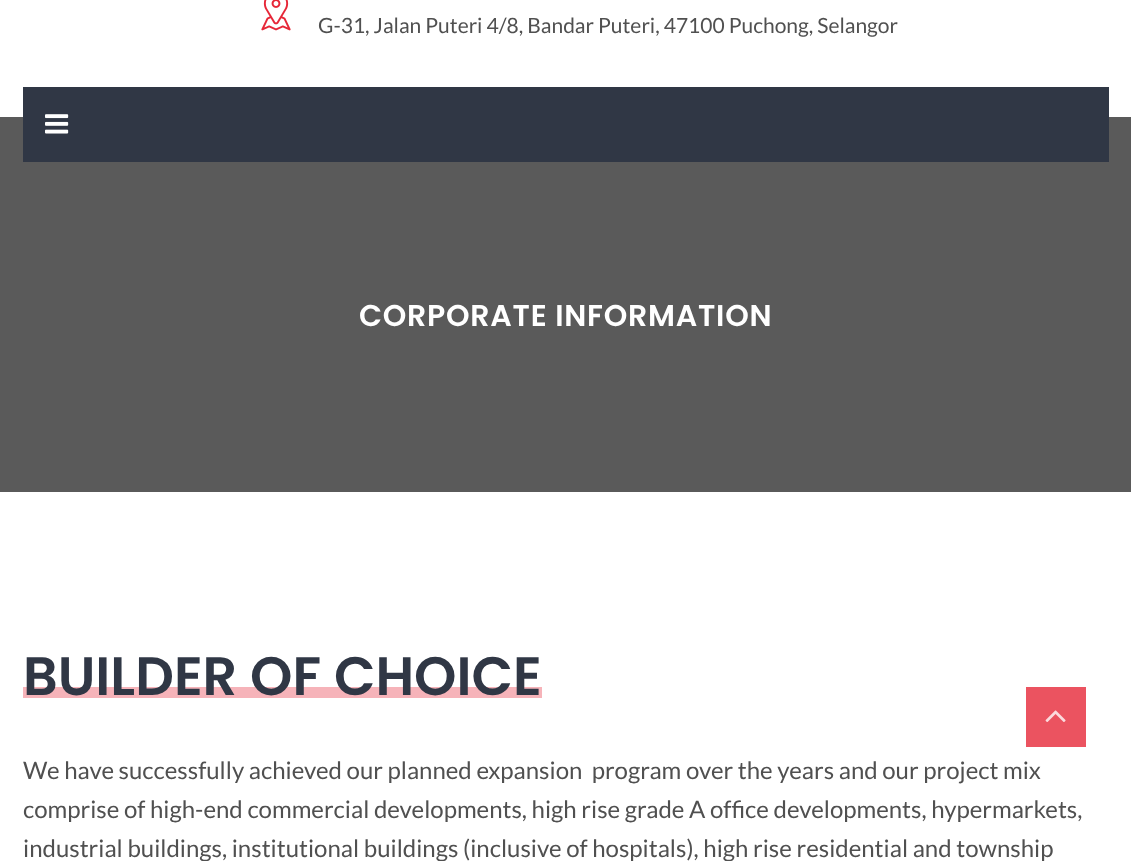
<!DOCTYPE html>
<meta charset="utf-8">
<style>body { margin: 0 } canvas { display: block }</style>
<canvas id="canvas" width="1131" height="861"></canvas>
<img id="img1" src="images/1.png" hidden>
<img id="img2" src="images/2.png" hidden>
<img id="img3" src="images/3.png" hidden>
<script>
window.onload = function () {
    const canvas = document.getElementById('canvas');
    const context = canvas.getContext('2d');
    context.miterLimit = 4;
    context.fontKerning = 'normal';

    context.fillStyle = 'rgb(255, 255, 255)';
    context.fillRect(0, 0, 1131, 861);
    context.drawImage(document.getElementById('img1'), 261, 0, 30, 31);
    context.fillStyle = 'rgb(90, 90, 90)';
    context.fillRect(0, 117, 1131, 375);
    context.fillStyle = 'rgb(48, 55, 69)';
    context.fillRect(23, 87, 1086, 75);
    context.drawImage(document.getElementById('img2'), 45, 114, 24, 20);
    context.fillStyle = 'rgb(246, 179, 185)';
    context.fillRect(23, 687, 519, 11);
    context.fillStyle = 'rgb(235, 83, 96)';
    context.fillRect(1026, 687, 60, 60);
    context.drawImage(document.getElementById('img3'), 1045, 710, 21, 12);
    context.font = '21px Lato';
    context.fillStyle = 'rgb(80, 80, 80)';
    context.fillText('G-31, Jalan Puteri 4/8, Bandar Puteri, 47100 Puchong, Selangor', 318, 33);
    context.letterSpacing = '0.75px';
    context.font = '600 30px Poppins';
    context.fillStyle = 'rgb(255, 255, 255)';
    context.fillText('CORPORATE INFORMATION', 359, 326);
    context.letterSpacing = '0px';
    context.font = '600 54px Poppins';
    context.fillStyle = 'rgb(48, 55, 69)';
    context.fillText('BUILDER OF CHOICE', 23, 695);
    context.font = '24px Lato';
    context.fillStyle = 'rgb(80, 80, 80)';
    context.fillText('We have successfully achieved our planned expansion  program over the years and our project mix', 23, 779);
    context.fillText('comprise of high-end commercial developments, high rise grade A office developments, hypermarkets,', 23, 818);
    context.fillText('industrial buildings, institutional buildings (inclusive of hospitals), high rise residential and township', 23, 857);
};
</script>
